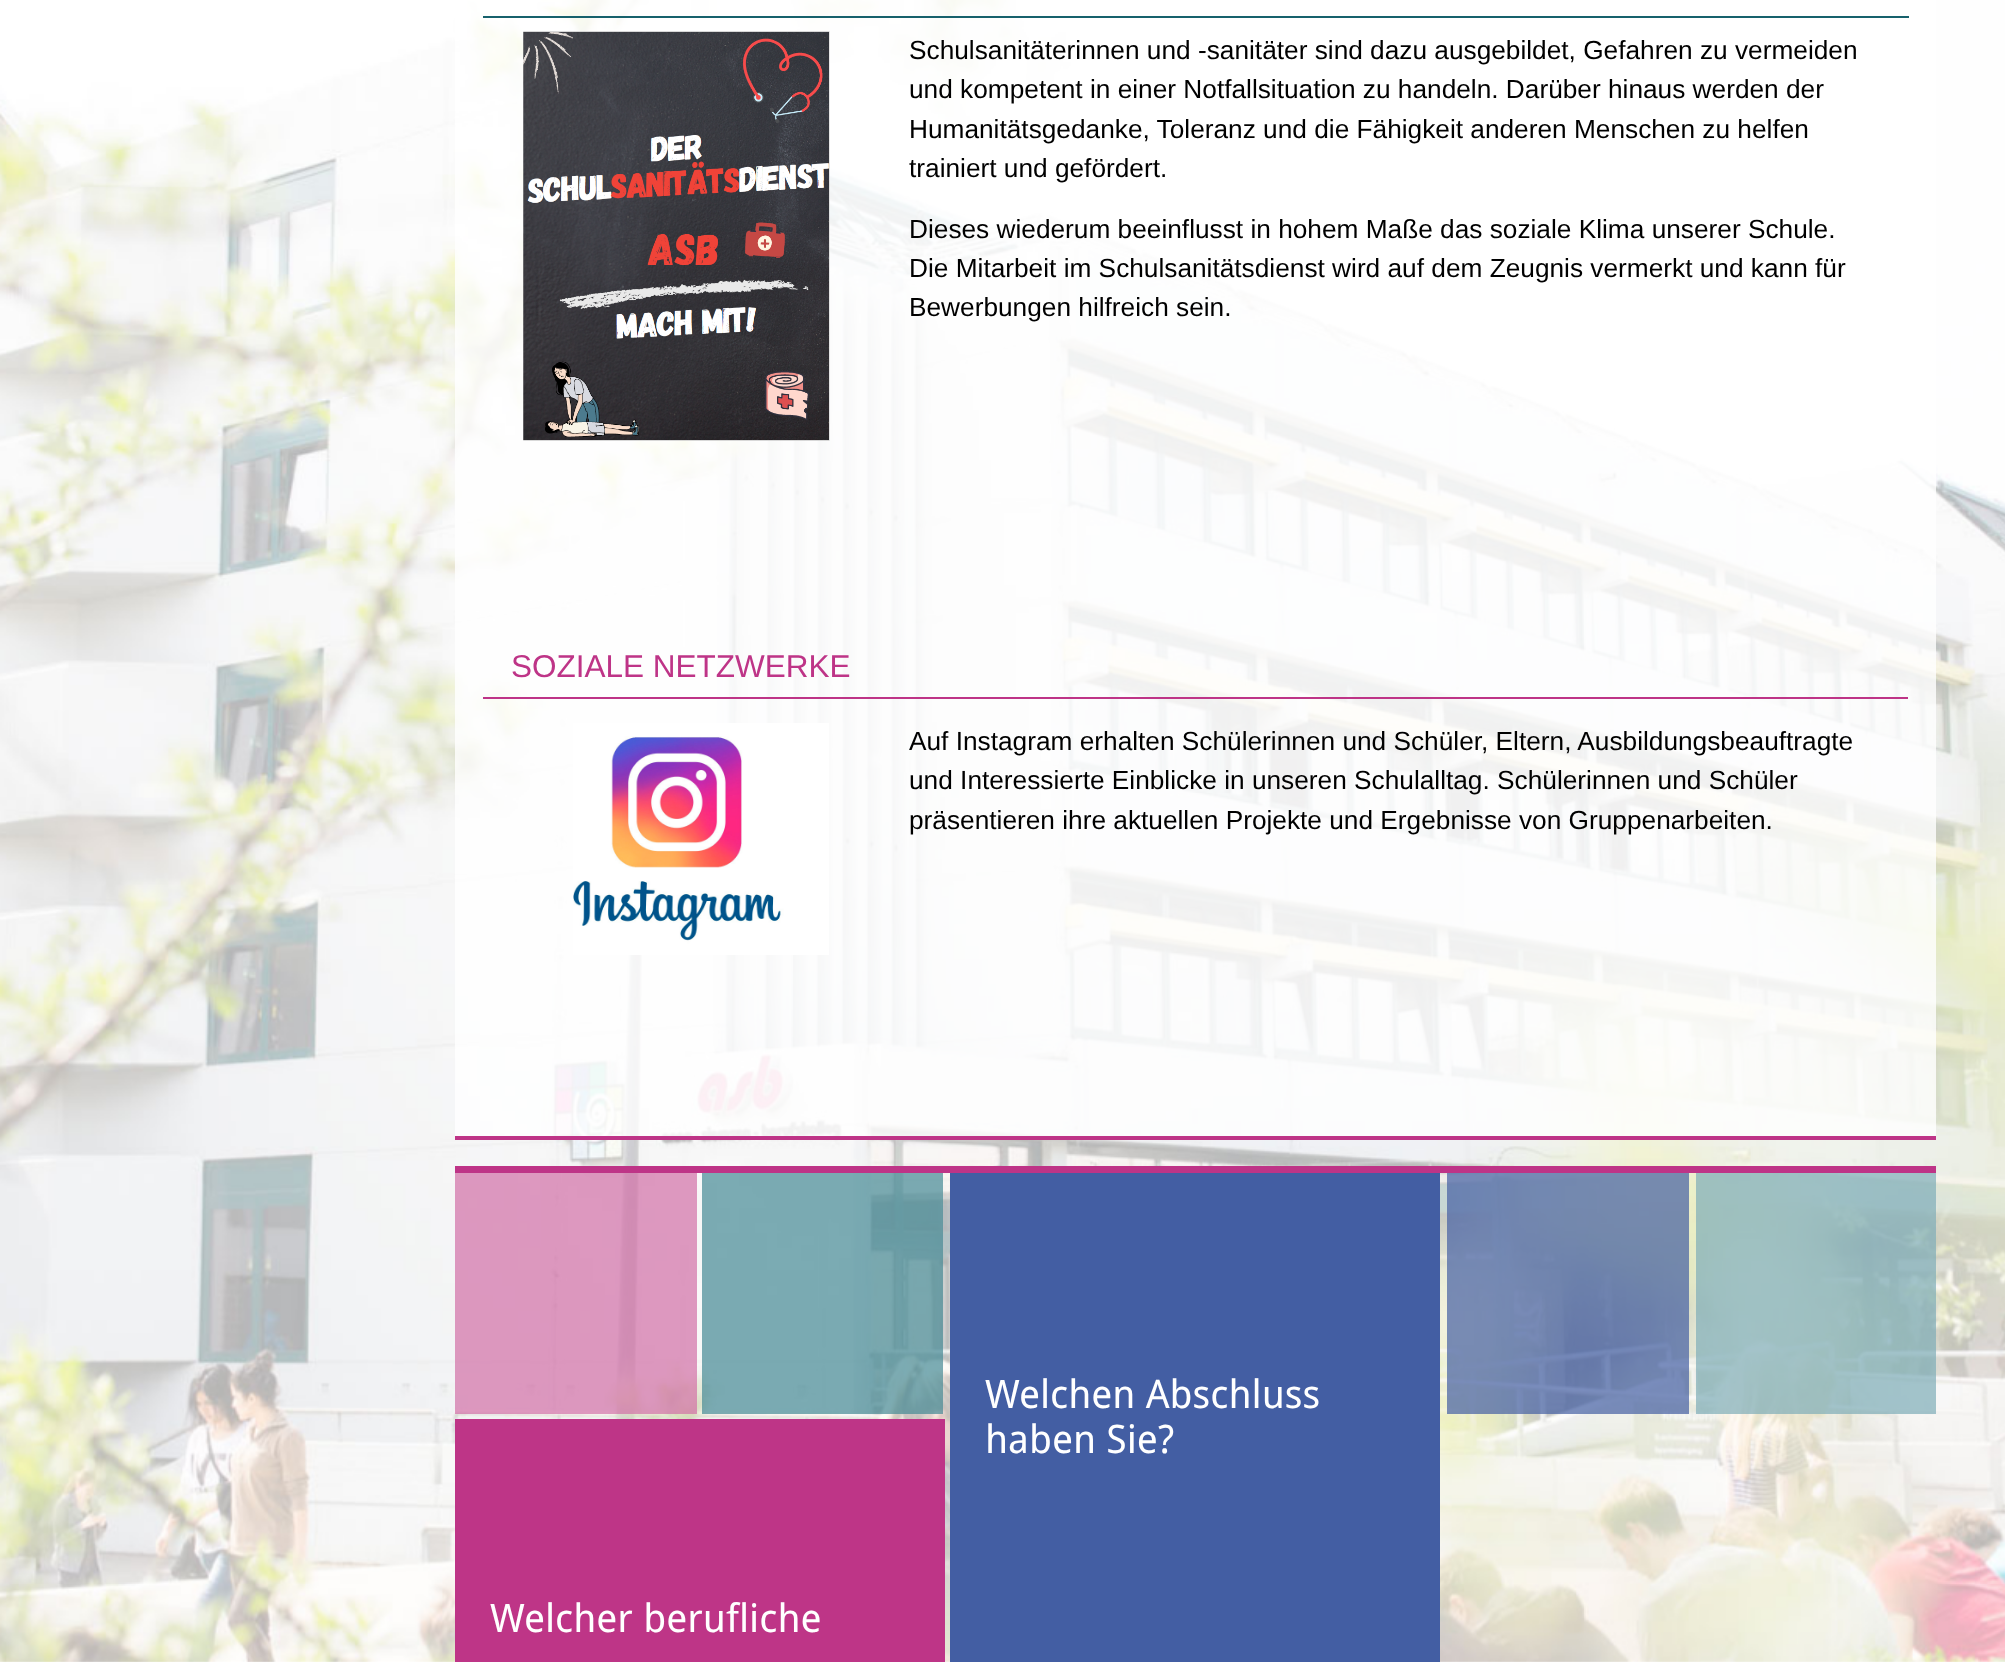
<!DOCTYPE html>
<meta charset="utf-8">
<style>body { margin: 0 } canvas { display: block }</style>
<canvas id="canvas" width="2005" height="1662"></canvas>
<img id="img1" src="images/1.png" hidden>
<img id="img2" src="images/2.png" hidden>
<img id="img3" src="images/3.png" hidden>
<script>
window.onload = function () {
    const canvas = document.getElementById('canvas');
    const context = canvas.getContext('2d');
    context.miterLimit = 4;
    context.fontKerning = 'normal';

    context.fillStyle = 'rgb(255, 255, 255)';
    context.fillRect(0, 0, 2005, 1662);
    context.drawImage(document.getElementById('img1'), 0, 0, 2005, 1662);
    context.fillStyle = 'rgba(255, 255, 255, 0.8)';
    context.fillRect(455, 0, 1481, 1136);
    context.fillStyle = 'rgb(190, 52, 135)';
    context.fillRect(455, 1136, 1481, 4);
    context.fillStyle = 'rgb(23, 97, 108)';
    context.fillRect(483, 16, 1426, 2);
    context.drawImage(document.getElementById('img2'), 523, 31, 307, 410);
    context.fillStyle = 'rgb(190, 52, 135)';
    context.fillRect(483, 697, 1425, 2);
    context.drawImage(document.getElementById('img3'), 573, 723, 256, 232);
    context.fillRect(455, 1166, 1481, 7);
    context.fillStyle = 'rgba(210, 111, 166, 0.7)';
    context.fillRect(455, 1173, 242, 241);
    context.fillStyle = 'rgba(69, 137, 148, 0.7)';
    context.fillRect(702, 1173, 241, 241);
    context.fillStyle = 'rgb(67, 94, 163)';
    context.fillRect(950, 1173, 490, 489);
    context.fillStyle = 'rgba(67, 94, 163, 0.7)';
    context.fillRect(1447, 1173, 242, 241);
    context.fillStyle = 'rgba(126, 172, 184, 0.7)';
    context.fillRect(1696, 1173, 240, 241);
    context.fillStyle = 'rgb(190, 53, 135)';
    context.fillRect(455, 1419, 490, 243);
    context.font = '26.25px Liberation Sans';
    context.fillStyle = 'rgb(0, 0, 0)';
    context.fillText('Schulsanitäterinnen und -sanitäter sind dazu ausgebildet, Gefahren zu vermeiden', 909, 59);
    context.fillText('und kompetent in einer Notfallsituation zu handeln. Darüber hinaus werden der', 909, 98);
    context.fillText('Humanitätsgedanke, Toleranz und die Fähigkeit anderen Menschen zu helfen', 909, 138);
    context.fillText('trainiert und gefördert.', 909, 177);
    context.fillText('Dieses wiederum beeinflusst in hohem Maße das soziale Klima unserer Schule.', 909, 238);
    context.fillText('Die Mitarbeit im Schulsanitätsdienst wird auf dem Zeugnis vermerkt und kann für', 909, 277);
    context.fillText('Bewerbungen hilfreich sein.', 909, 316);
    context.font = '31.5px Liberation Sans';
    context.fillStyle = 'rgb(190, 52, 135)';
    context.fillText('SOZIALE NETZWERKE', 511, 677);
    context.font = '26.25px Liberation Sans';
    context.fillStyle = 'rgb(0, 0, 0)';
    context.fillText('Auf Instagram erhalten Schülerinnen und Schüler, Eltern, Ausbildungsbeauftragte', 909, 750);
    context.fillText('und Interessierte Einblicke in unseren Schulalltag. Schülerinnen und Schüler', 909, 789);
    context.fillText('präsentieren ihre aktuellen Projekte und Ergebnisse von Gruppenarbeiten.', 909, 829);
    context.font = '39.25px Droid Sans';
    context.fillStyle = 'rgb(255, 255, 255)';
    context.fillText('Welchen Abschluss', 985, 1408);
    context.fillText('haben Sie?', 985, 1453);
    context.fillText('Welcher berufliche', 490, 1632);
};
</script>
